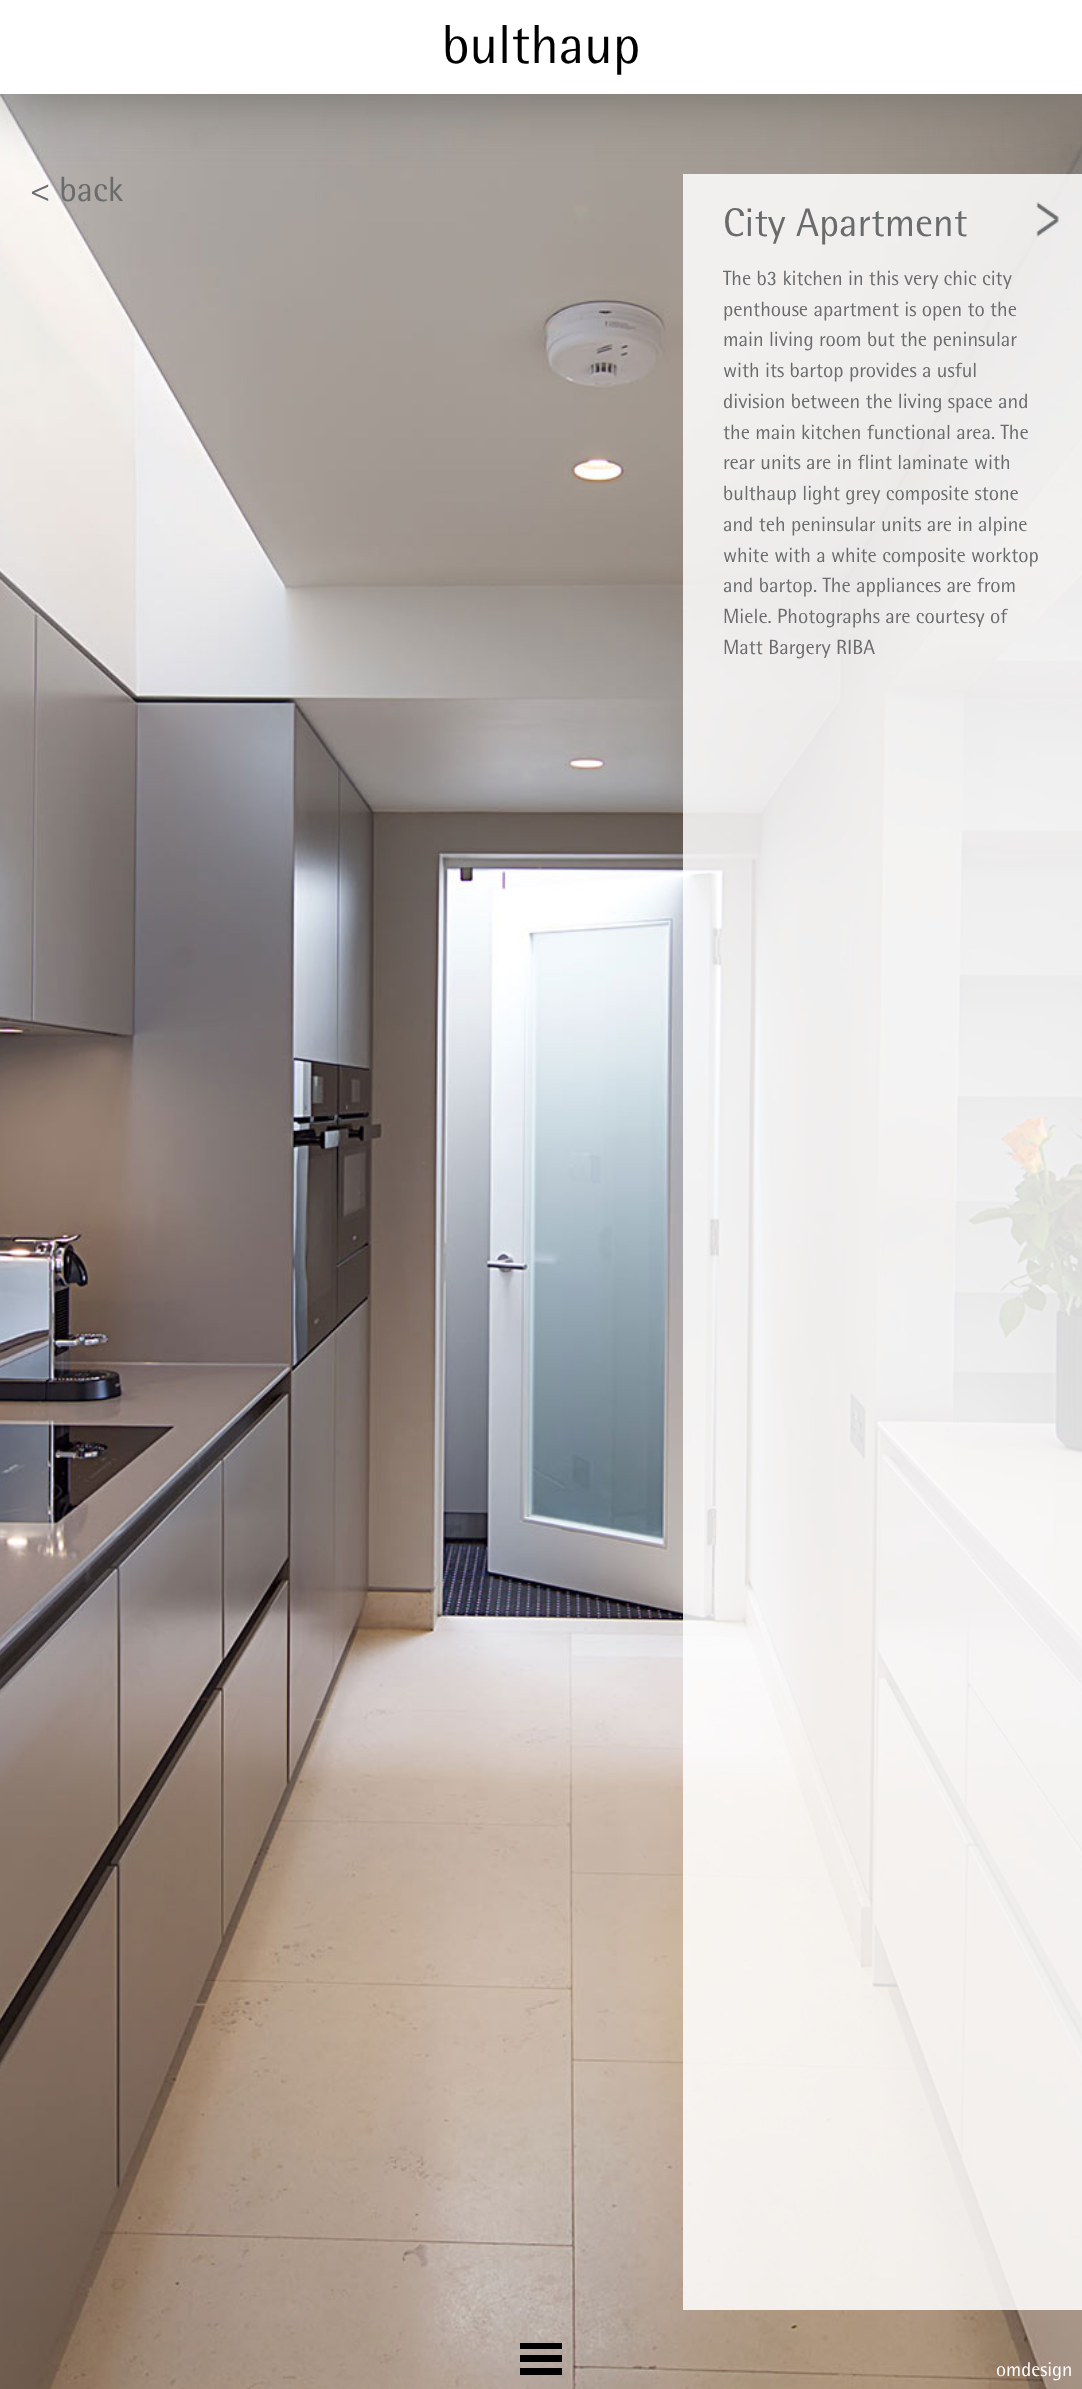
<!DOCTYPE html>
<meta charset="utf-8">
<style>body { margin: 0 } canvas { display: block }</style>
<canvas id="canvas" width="1082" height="2389"></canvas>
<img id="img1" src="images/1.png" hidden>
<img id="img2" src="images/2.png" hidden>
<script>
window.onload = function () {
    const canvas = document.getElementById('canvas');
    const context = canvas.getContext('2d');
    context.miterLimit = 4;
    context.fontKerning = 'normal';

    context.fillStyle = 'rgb(255, 255, 255)';
    context.fillRect(0, 0, 1082, 2389);
    context.drawImage(document.getElementById('img1'), 0, 94, 1082, 2295);
    context.fillStyle = 'rgba(255, 255, 255, 0.85)';
    context.fillRect(683, 174, 399, 2136);
    context.fillStyle = 'rgb(111, 108, 101)';
    context.filter = 'blur(31px)';
    context.beginPath();
    context.rect(0, 0, 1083, 94);
    context.fill();
    context.filter = 'none';
    context.fillStyle = 'rgb(255, 255, 255)';
    context.fillRect(0, 0, 1082, 94);
    context.drawImage(document.getElementById('img2'), 1036, 202, 23, 35);
    context.fillStyle = 'rgb(0, 0, 0)';
    context.beginPath();
    context.moveTo(562, 2349);
    context.lineTo(520, 2349);
    context.lineTo(520, 2343);
    context.lineTo(562, 2343);
    context.closePath();
    context.moveTo(562, 2355);
    context.lineTo(520, 2355);
    context.lineTo(520, 2362);
    context.lineTo(562, 2362);
    context.closePath();
    context.moveTo(562, 2368);
    context.lineTo(520, 2368);
    context.lineTo(520, 2375);
    context.lineTo(562, 2375);
    context.closePath();
    context.fill();
    context.font = '55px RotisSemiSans';
    context.fillText('bulthaup', 442, 63);
    context.font = '35px RotisSemiSans';
    context.fillStyle = 'rgb(105, 107, 108)';
    context.fillText('< back', 30, 201);
    context.font = '40px RotisSemiSans';
    context.fillText('City Apartment', 723, 236);
    context.font = '20.5px RotisSemiSans';
    context.fillText('The b3 kitchen in this very chic city', 723, 285);
    context.fillText('penthouse apartment is open to the', 723, 316);
    context.fillText('main living room but the peninsular', 723, 346);
    context.fillText('with its bartop provides a usful', 723, 377);
    context.fillText('division between the living space and', 723, 408);
    context.fillText('the main kitchen functional area. The', 723, 439);
    context.fillText('rear units are in flint laminate with', 723, 469);
    context.fillText('bulthaup light grey composite stone', 723, 500);
    context.fillText('and teh peninsular units are in alpine', 723, 531);
    context.fillText('white with a white composite worktop', 723, 562);
    context.fillText('and bartop. The appliances are from', 723, 592);
    context.fillText('Miele. Photographs are courtesy of', 723, 623);
    context.fillText('Matt Bargery RIBA', 723, 654);
    context.font = '20px RotisSemiSans';
    context.fillStyle = 'rgb(255, 255, 255)';
    context.fillText('omdesign', 996, 2376);
};
</script>
